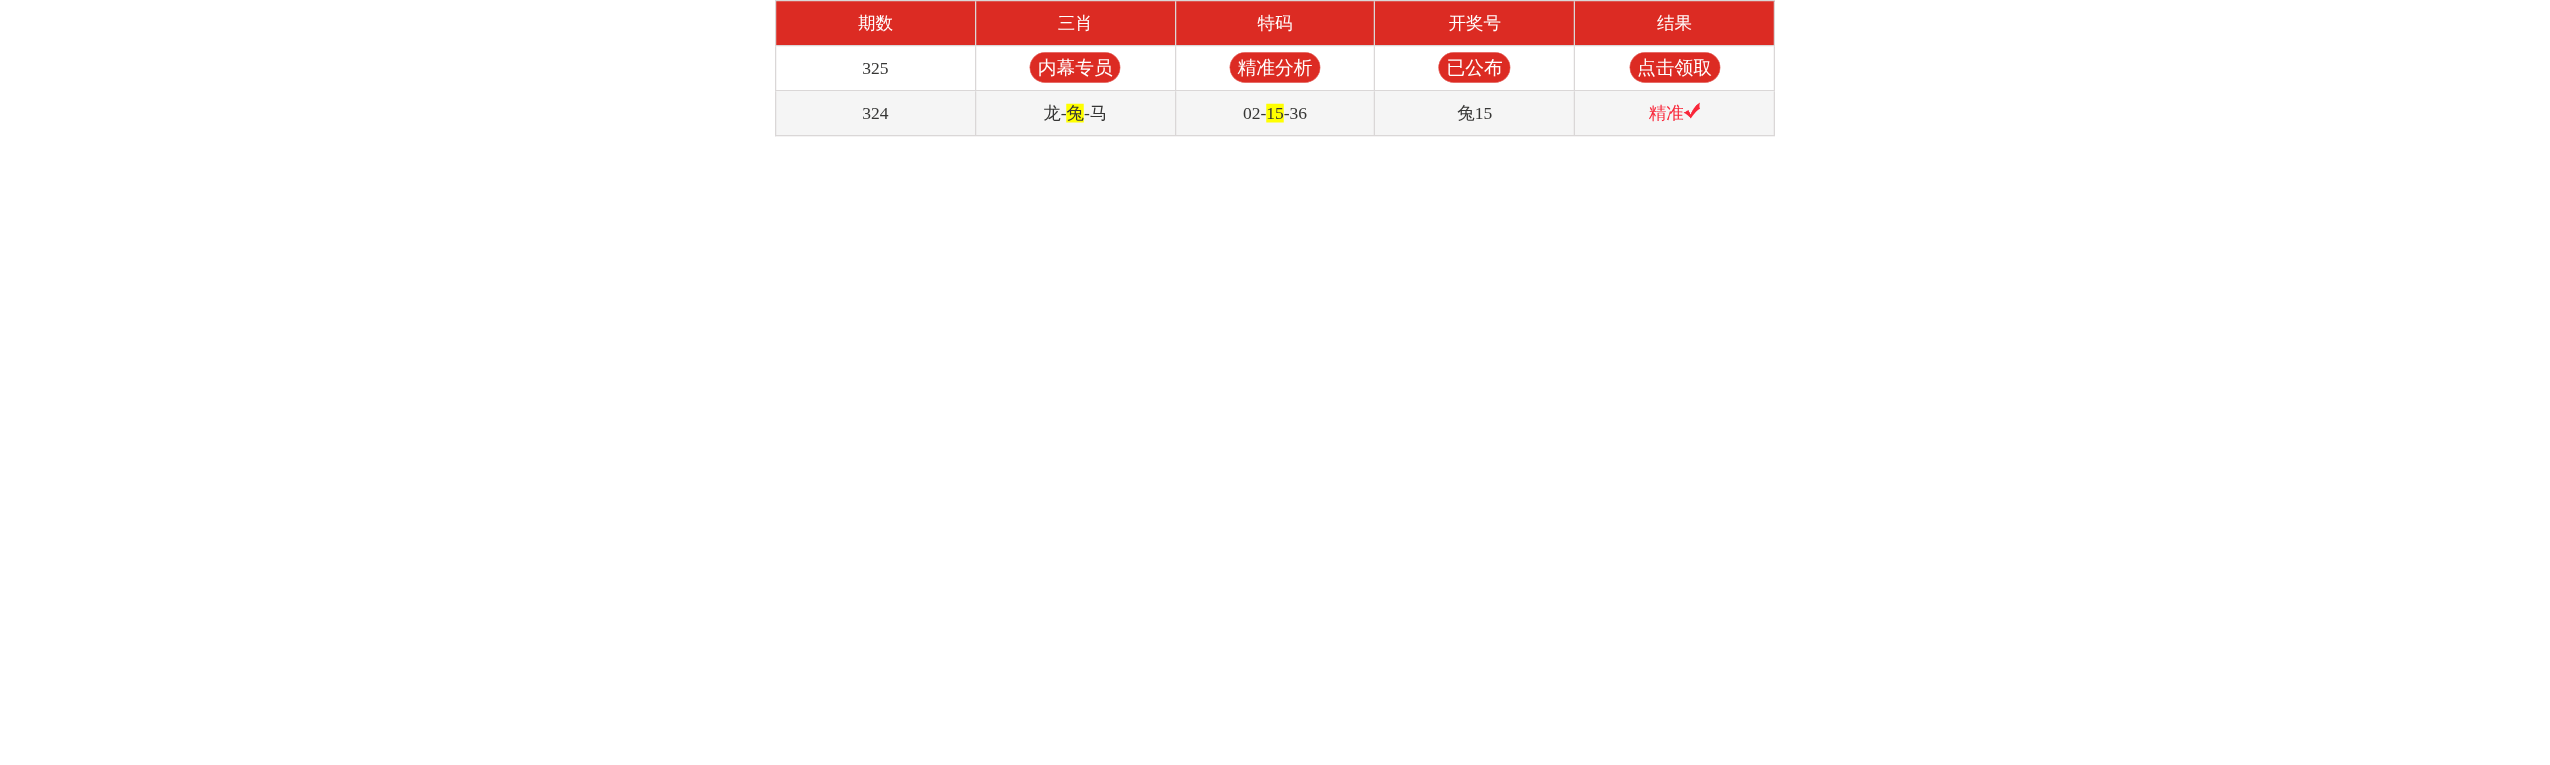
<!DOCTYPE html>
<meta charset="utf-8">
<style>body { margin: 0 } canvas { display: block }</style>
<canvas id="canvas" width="2550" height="765"></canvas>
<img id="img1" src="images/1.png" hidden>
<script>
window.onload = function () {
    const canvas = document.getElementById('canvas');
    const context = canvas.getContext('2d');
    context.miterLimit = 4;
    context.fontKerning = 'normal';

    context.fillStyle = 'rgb(255, 255, 255)';
    context.fillRect(0, 0, 2550, 765);
    context.drawImage(document.getElementById('img1'), 775, 0, 1000, 137);
};
</script>
